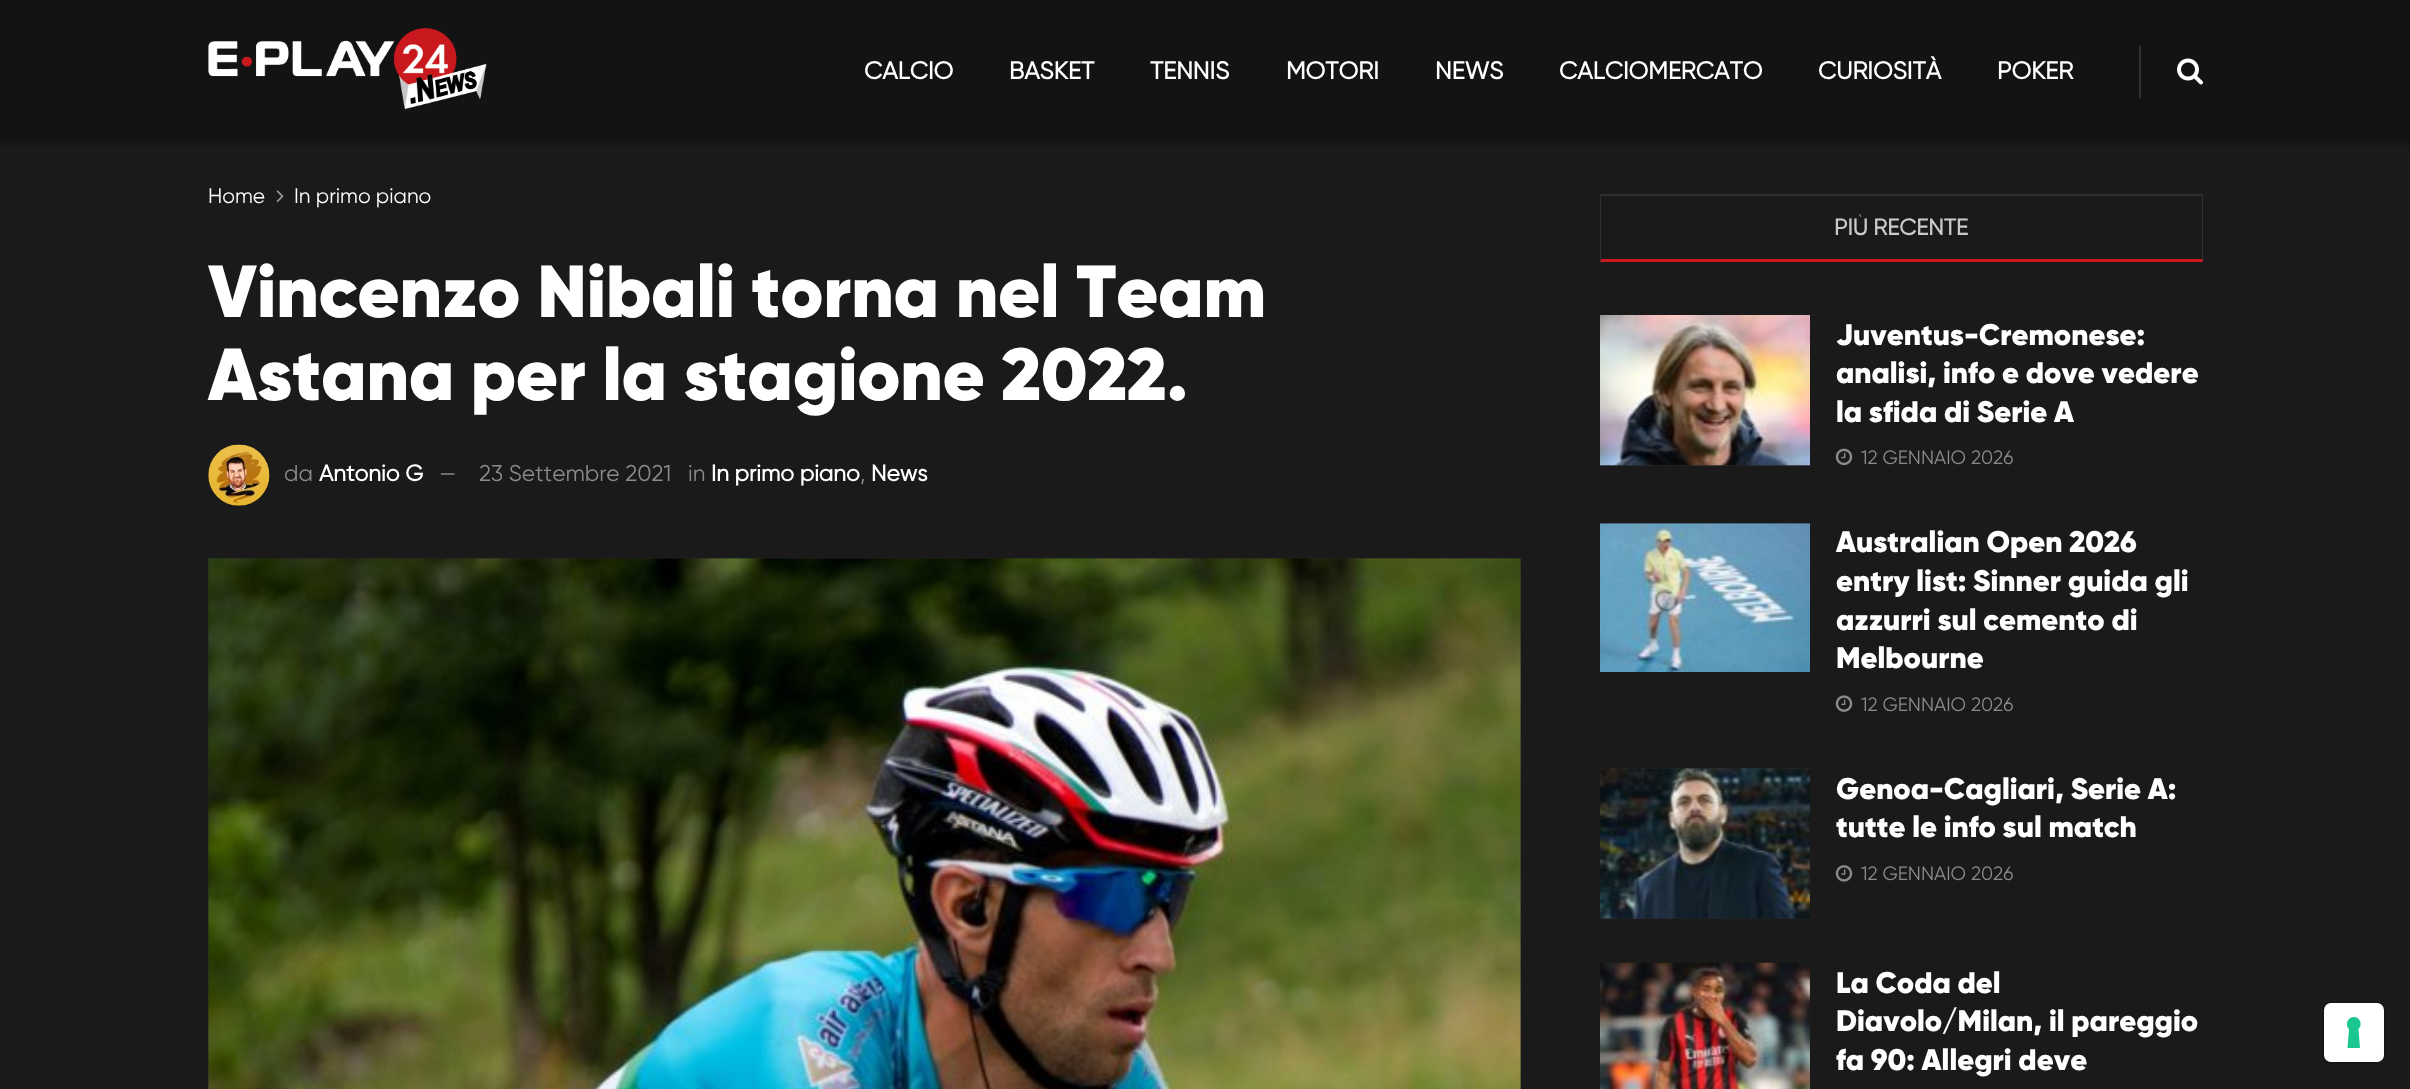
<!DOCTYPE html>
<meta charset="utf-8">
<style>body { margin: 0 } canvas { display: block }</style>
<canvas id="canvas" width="2410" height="1089"></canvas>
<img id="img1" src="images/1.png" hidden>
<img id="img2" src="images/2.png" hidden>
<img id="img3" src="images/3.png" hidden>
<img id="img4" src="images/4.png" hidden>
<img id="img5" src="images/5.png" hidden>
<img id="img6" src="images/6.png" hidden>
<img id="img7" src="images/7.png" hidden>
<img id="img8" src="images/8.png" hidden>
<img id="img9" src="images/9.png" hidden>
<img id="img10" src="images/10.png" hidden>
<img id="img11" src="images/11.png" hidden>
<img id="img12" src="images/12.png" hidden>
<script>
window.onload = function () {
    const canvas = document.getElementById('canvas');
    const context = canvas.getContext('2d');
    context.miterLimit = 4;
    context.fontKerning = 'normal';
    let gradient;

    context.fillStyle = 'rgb(26, 26, 26)';
    context.fillRect(0, 0, 2410, 1089);
    context.fillStyle = 'rgb(19, 19, 19)';
    context.fillRect(0, 0, 2410, 142);
    context.drawImage(document.getElementById('img1'), 208, 28, 279, 81);
    context.fillStyle = 'rgb(48, 48, 48)';
    context.fillRect(2139, 46, 2, 52);
    context.drawImage(document.getElementById('img2'), 2177, 58, 26, 27);
    gradient = context.createLinearGradient(1206, 142, 1206, 154);
    gradient.addColorStop(0, 'rgb(22, 22, 22)');
    gradient.addColorStop(1, 'rgb(26, 26, 26)');
    context.fillStyle = gradient;
    context.fillRect(0, 142, 2410, 4);
    context.drawImage(document.getElementById('img3'), 276, 190, 8, 12);
    context.drawImage(document.getElementById('img4'), 208, 444, 62, 62);
    context.fillStyle = 'rgb(40, 40, 40)';
    context.fillRect(208, 558, 1313, 531);
    context.drawImage(document.getElementById('img5'), 208, 558, 1313, 531);
    context.fillStyle = 'rgb(48, 48, 48)';
    context.fillRect(1600, 194, 603, 2);
    context.beginPath();
    context.moveTo(2203, 194);
    context.lineTo(2203, 262);
    context.lineTo(2202, 259);
    context.lineTo(2202, 196);
    context.closePath();
    context.fill();
    context.fillStyle = 'rgb(202, 24, 31)';
    context.beginPath();
    context.moveTo(2203, 262);
    context.lineTo(1600, 262);
    context.lineTo(1601, 259);
    context.lineTo(2202, 259);
    context.closePath();
    context.fill();
    context.fillStyle = 'rgb(48, 48, 48)';
    context.beginPath();
    context.moveTo(1600, 262);
    context.lineTo(1600, 194);
    context.lineTo(1601, 196);
    context.lineTo(1601, 259);
    context.closePath();
    context.fill();
    context.fillStyle = 'rgb(40, 40, 40)';
    context.fillRect(1600, 465, 210, 1);
    context.drawImage(document.getElementById('img6'), 1600, 315, 210, 151);
    context.drawImage(document.getElementById('img7'), 1835, 448, 18, 18);
    context.fillRect(1600, 523, 210, 1);
    context.drawImage(document.getElementById('img8'), 1600, 523, 210, 149);
    context.drawImage(document.getElementById('img9'), 1835, 695, 18, 17);
    context.fillRect(1600, 768, 210, 151);
    context.drawImage(document.getElementById('img10'), 1600, 768, 210, 151);
    context.drawImage(document.getElementById('img11'), 1835, 865, 18, 17);
    context.drawImage(document.getElementById('img12'), 1600, 962, 210, 127);
    context.beginPath();
    context.roundRect(2323, 1002, 61, 61, 8);
    context.strokeStyle = 'rgb(22, 22, 22)';
    context.lineWidth = 2;
    context.stroke();
    context.fillStyle = 'rgb(255, 255, 255)';
    context.beginPath();
    context.roundRect(2324, 1003, 60, 59, 7);
    context.fill();
    context.fillStyle = 'rgb(28, 198, 145)';
    context.beginPath();
    context.moveTo(2354, 1017);
    context.bezierCurveTo(2360, 1017, 2363, 1025, 2358.5, 1029);
    context.lineTo(2360, 1048);
    context.lineTo(2347.5, 1048);
    context.lineTo(2349, 1029);
    context.bezierCurveTo(2344.5, 1025, 2347.5, 1017, 2354, 1017);
    context.closePath();
    context.fill('evenodd');
    context.font = 'bold 24.5px Gilroy';
    context.fillStyle = 'rgb(255, 255, 255)';
    context.fillText('CALCIO', 864, 79);
    context.fillText('BASKET', 1009, 79);
    context.fillText('TENNIS', 1150, 79);
    context.fillText('MOTORI', 1286, 79);
    context.fillText('NEWS', 1435, 79);
    context.fillText('CALCIOMERCATO', 1559, 79);
    context.fillText('CURIOSITÀ', 1818, 79);
    context.fillText('POKER', 1997, 79);
    context.font = '21px Gilroy';
    context.fillText('Home', 208, 203);
    context.fillText('In primo piano', 294, 203);
    context.font = '900 73.5px Gilroy';
    context.fillText('Vincenzo Nibali torna nel Team', 208, 317);
    context.fillText('Astana per la stagione 2022.', 208, 400);
    context.font = '22.75px Gilroy';
    context.fillStyle = 'rgb(139, 139, 139)';
    context.fillText('da', 284, 481);
    context.font = 'bold 22.75px Gilroy';
    context.fillStyle = 'rgb(255, 255, 255)';
    context.fillText('Antonio G', 319, 481);
    context.font = '22.75px Gilroy';
    context.fillStyle = 'rgb(139, 139, 139)';
    context.fillText('—', 439, 481);
    context.fillText('23 Settembre 2021', 479, 481);
    context.fillText('in', 688, 481);
    context.font = 'bold 22.75px Gilroy';
    context.fillStyle = 'rgb(255, 255, 255)';
    context.fillText('In primo piano', 711, 481);
    context.font = '22.75px Gilroy';
    context.fillStyle = 'rgb(139, 139, 139)';
    context.fillText(',', 860, 481);
    context.font = 'bold 22.75px Gilroy';
    context.fillStyle = 'rgb(255, 255, 255)';
    context.fillText('News', 871, 481);
    context.fillStyle = 'rgb(202, 202, 202)';
    context.fillText('PIÙ RECENTE', 1834, 235);
    context.font = '900 29.75px Gilroy';
    context.fillStyle = 'rgb(255, 255, 255)';
    context.fillText('Juventus-Cremonese:', 1836, 345);
    context.fillText('analisi, info e dove vedere', 1836, 383);
    context.fillText('la sfida di Serie A', 1836, 422);
    context.font = '19.25px Gilroy';
    context.fillStyle = 'rgb(139, 139, 139)';
    context.fillText('12 GENNAIO 2026', 1861, 464);
    context.font = '900 29.75px Gilroy';
    context.fillStyle = 'rgb(255, 255, 255)';
    context.fillText('Australian Open 2026', 1836, 552);
    context.fillText('entry list: Sinner guida gli', 1836, 591);
    context.fillText('azzurri sul cemento di', 1836, 630);
    context.fillText('Melbourne', 1836, 668);
    context.font = '19.25px Gilroy';
    context.fillStyle = 'rgb(139, 139, 139)';
    context.fillText('12 GENNAIO 2026', 1861, 711);
    context.font = '900 29.75px Gilroy';
    context.fillStyle = 'rgb(255, 255, 255)';
    context.fillText('Genoa-Cagliari, Serie A:', 1836, 799);
    context.fillText('tutte le info sul match', 1836, 837);
    context.font = '19.25px Gilroy';
    context.fillStyle = 'rgb(139, 139, 139)';
    context.fillText('12 GENNAIO 2026', 1861, 880);
    context.font = '900 29.75px Gilroy';
    context.fillStyle = 'rgb(255, 255, 255)';
    context.fillText('La Coda del', 1836, 993);
    context.fillText('Diavolo/Milan, il pareggio', 1836, 1031);
    context.fillText('fa 90: Allegri deve', 1836, 1070);
};
</script>
